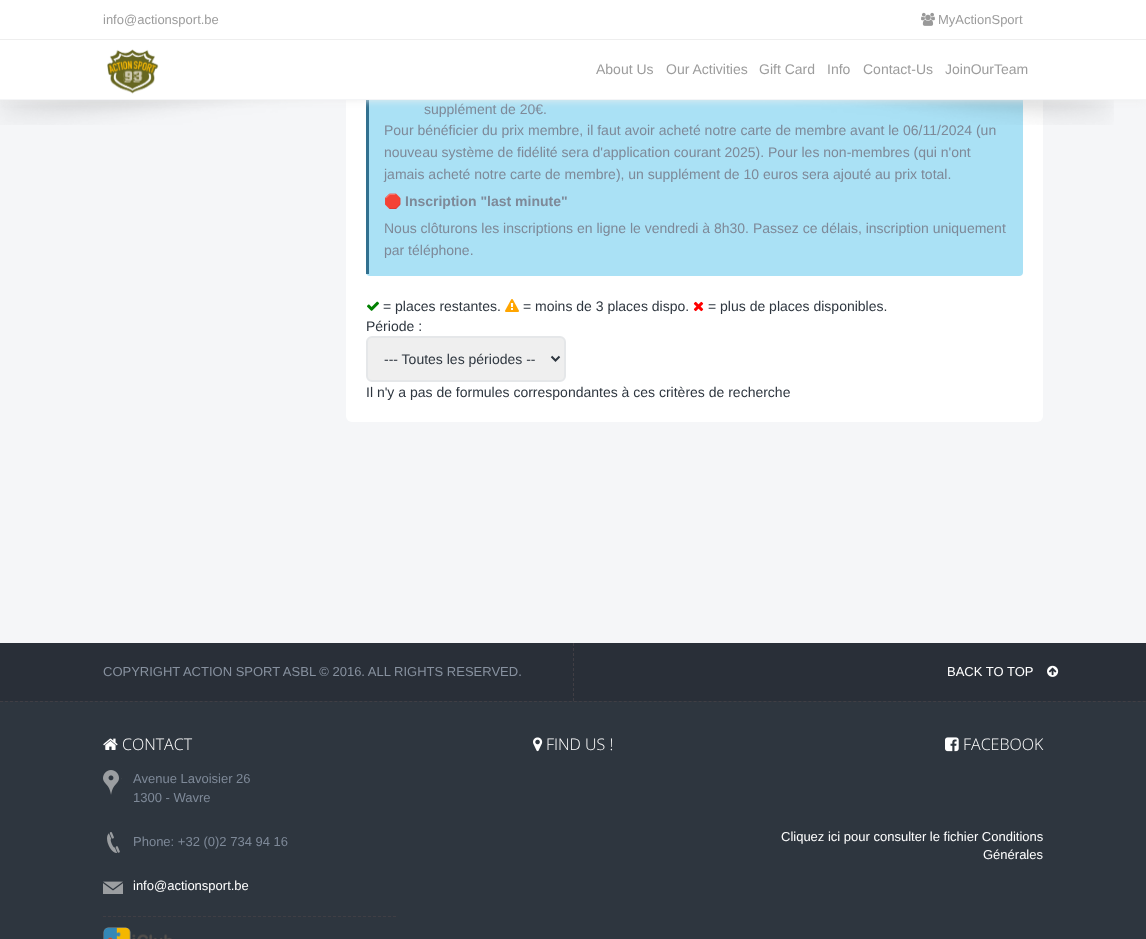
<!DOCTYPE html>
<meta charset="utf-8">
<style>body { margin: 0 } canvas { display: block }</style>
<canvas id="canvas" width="1146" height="939"></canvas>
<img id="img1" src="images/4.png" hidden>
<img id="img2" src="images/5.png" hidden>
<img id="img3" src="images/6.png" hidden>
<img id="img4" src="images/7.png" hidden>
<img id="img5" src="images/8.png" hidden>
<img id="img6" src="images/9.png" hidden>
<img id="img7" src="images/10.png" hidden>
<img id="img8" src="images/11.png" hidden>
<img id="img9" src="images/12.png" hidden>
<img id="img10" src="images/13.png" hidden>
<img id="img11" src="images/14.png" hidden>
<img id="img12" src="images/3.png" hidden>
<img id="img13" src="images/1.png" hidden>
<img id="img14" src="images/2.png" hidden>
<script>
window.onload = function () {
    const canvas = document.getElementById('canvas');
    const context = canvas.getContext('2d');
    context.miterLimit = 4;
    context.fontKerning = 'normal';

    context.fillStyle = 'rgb(46, 54, 63)';
    context.fillRect(0, 0, 1146, 939);
    context.fillStyle = 'rgb(245, 246, 248)';
    context.fillRect(0, 100, 1146, 543);
    context.fillStyle = 'rgb(255, 255, 255)';
    context.beginPath();
    context.roundRect(346, -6, 697, 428, 6);
    context.fill();
    context.fillStyle = 'rgb(170, 225, 245)';
    context.beginPath();
    context.roundRect(366, -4, 657, 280, 4);
    context.fill();
    context.fillStyle = 'rgb(49, 112, 143)';
    context.fillRect(366, 100, 3, 174);
    context.drawImage(document.getElementById('img1'), 367, 301, 12, 10);
    context.drawImage(document.getElementById('img2'), 505, 299, 14, 13);
    context.drawImage(document.getElementById('img3'), 693, 301, 11, 11);
    context.fillStyle = 'rgb(239, 239, 239)';
    context.beginPath();
    context.roundRect(367, 337, 198, 44, 5);
    context.fill();
    context.strokeStyle = 'rgb(229, 231, 233)';
    context.lineWidth = 2;
    context.stroke();
    context.beginPath();
    context.moveTo(551.5, 356.5);
    context.lineTo(555.5, 360.5);
    context.lineTo(559.5, 356.5);
    context.strokeStyle = 'rgb(46, 54, 63)';
    context.stroke();
    context.fillStyle = 'rgb(41, 47, 56)';
    context.fillRect(0, 643, 1146, 58);
    context.beginPath();
    context.moveTo(573.5, 643);
    context.lineTo(573.5, 701);
    context.strokeStyle = 'rgb(64, 62, 68)';
    context.lineWidth = 1;
    context.setLineDash([3, 2]);
    context.stroke();
    context.drawImage(document.getElementById('img4'), 1047, 665, 12, 12);
    context.beginPath();
    context.moveTo(0, 701.5);
    context.lineTo(1146, 701.5);
    context.setLineDash([3, 1.99]);
    context.stroke();
    context.drawImage(document.getElementById('img5'), 103, 738, 15, 12);
    context.drawImage(document.getElementById('img6'), 103, 770, 19, 25);
    context.drawImage(document.getElementById('img7'), 107, 832, 13, 21);
    context.drawImage(document.getElementById('img8'), 103, 881, 20, 13);
    context.beginPath();
    context.moveTo(103, 916.5);
    context.lineTo(396, 916.5);
    context.setLineDash([3, 2]);
    context.stroke();
    context.drawImage(document.getElementById('img9'), 103, 927, 69, 12);
    context.drawImage(document.getElementById('img10'), 533, 737, 10, 15);
    context.drawImage(document.getElementById('img11'), 945, 737, 14, 15);
    context.font = '14px Liberation Sans';
    context.fillStyle = 'rgb(126, 137, 152)';
    context.fillText('supplément de 20€.', 424, 114);
    context.fillText('Pour bénéficier du prix membre, il faut avoir acheté notre carte de membre avant le 06/11/2024 (un', 384, 135);
    context.drawImage(document.getElementById('img12'), 0, 100, 1114, 25);
    context.fillStyle = 'rgb(238, 238, 238)';
    context.filter = 'blur(4px)';
    context.beginPath();
    context.rect(0, 40, 1146, 60);
    context.fill();
    context.filter = 'none';
    context.fillStyle = 'rgb(255, 255, 255)';
    context.fillRect(0, 0, 1146, 39);
    context.font = '13px Liberation Sans';
    context.fillStyle = 'rgb(156, 156, 156)';
    context.fillText('MyActionSport', 938, 24);
    context.drawImage(document.getElementById('img13'), 921, 12, 14, 14);
    context.fillText('info@actionsport.be', 103, 24);
    context.fillStyle = 'rgb(238, 238, 238)';
    context.fillRect(0, 39, 1146, 1);
    context.fillStyle = 'rgb(255, 255, 255)';
    context.fillRect(0, 40, 1146, 59);
    context.font = '14px Liberation Sans';
    context.fillStyle = 'rgb(156, 156, 156)';
    context.fillText('JoinOurTeam', 945, 74);
    context.fillText('Contact-Us', 863, 74);
    context.fillText('Info', 827, 74);
    context.fillText('Gift Card', 759, 74);
    context.fillText('Our Activities', 666, 74);
    context.fillText('About Us', 596, 74);
    context.drawImage(document.getElementById('img14'), 107, 49, 52, 45);
    context.fillStyle = 'rgb(244, 245, 247)';
    context.fillRect(0, 99, 1146, 1);
    context.fillStyle = 'rgb(126, 137, 152)';
    context.fillText('nouveau système de fidélité sera d\'application courant 2025). Pour les non-membres (qui n\'ont', 384, 157);
    context.fillText('jamais acheté notre carte de membre), un supplément de 10 euros sera ajouté au prix total.', 384, 179);
    context.font = '14px Noto Color Emoji';
    context.fillText('🛑', 384, 206);
    context.font = 'bold 14px Liberation Sans';
    context.fillText('Inscription "last minute"', 405, 206);
    context.font = '14px Liberation Sans';
    context.fillText('Nous clôturons les inscriptions en ligne le vendredi à 8h30. Passez ce délais, inscription uniquement', 384, 233);
    context.fillText('par téléphone.', 384, 255);
    context.fillStyle = 'rgb(46, 54, 63)';
    context.fillText('= places restantes.', 383, 311);
    context.fillText('= moins de 3 places dispo.', 523, 311);
    context.fillText('= plus de places disponibles.', 708, 311);
    context.fillText('Période :', 366, 331);
    context.fillText('--- Toutes les périodes --', 384, 364);
    context.fillText('Il n\'y a pas de formules correspondantes à ces critères de recherche', 366, 397);
    context.font = '13px Liberation Sans';
    context.fillStyle = 'rgb(135, 145, 159)';
    context.fillText('COPYRIGHT ACTION SPORT ASBL © 2016. ALL RIGHTS RESERVED.', 103, 676);
    context.fillStyle = 'rgb(255, 255, 255)';
    context.fillText('BACK TO TOP', 947, 676);
    context.font = '300 16px Open Sans';
    context.fillText('CONTACT', 122, 750);
    context.font = '13px Liberation Sans';
    context.fillStyle = 'rgb(126, 137, 152)';
    context.fillText('Avenue Lavoisier 26', 133, 783);
    context.fillText('1300 - Wavre', 133, 802);
    context.fillText('Phone: +32 (0)2 734 94 16', 133, 846);
    context.fillStyle = 'rgb(255, 255, 255)';
    context.fillText('info@actionsport.be', 133, 890);
    context.font = '300 16px Open Sans';
    context.fillText('FIND US !', 546, 750);
    context.fillText('FACEBOOK', 963, 750);
    context.font = '13px Liberation Sans';
    context.fillText('Cliquez ici pour consulter le fichier Conditions', 781, 841);
    context.fillText('Générales', 983, 859);
};
</script>
